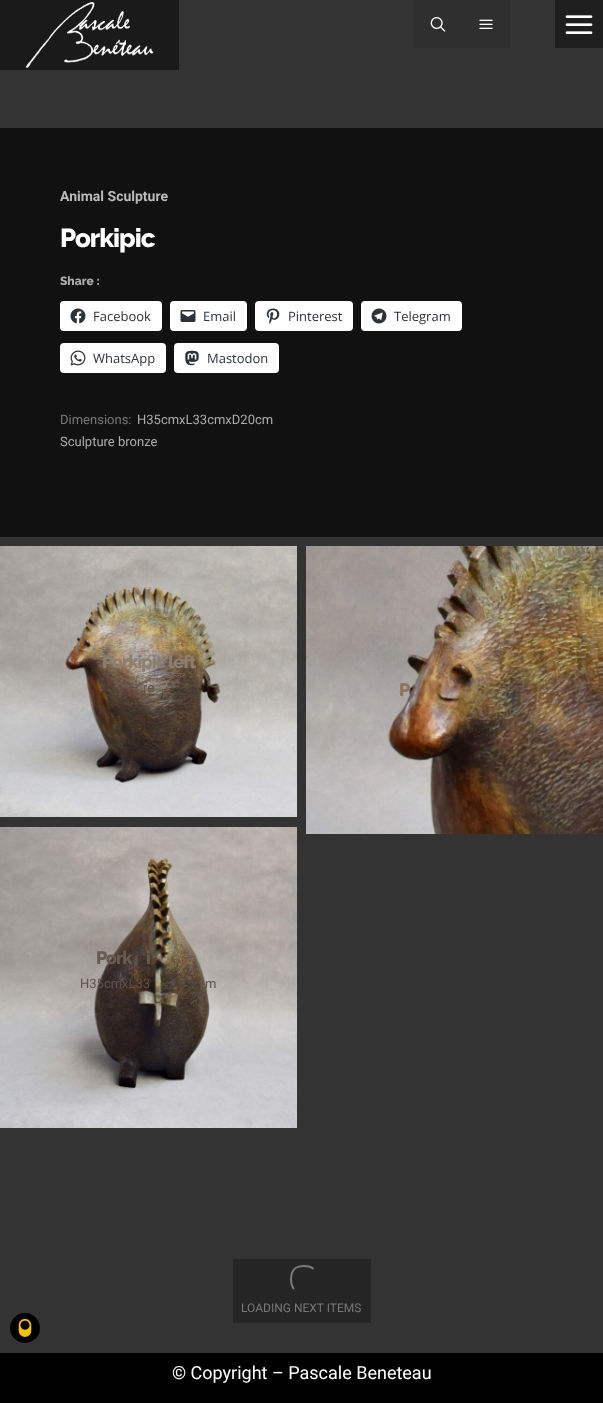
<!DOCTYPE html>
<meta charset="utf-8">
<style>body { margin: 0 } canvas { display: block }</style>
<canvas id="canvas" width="603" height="1403"></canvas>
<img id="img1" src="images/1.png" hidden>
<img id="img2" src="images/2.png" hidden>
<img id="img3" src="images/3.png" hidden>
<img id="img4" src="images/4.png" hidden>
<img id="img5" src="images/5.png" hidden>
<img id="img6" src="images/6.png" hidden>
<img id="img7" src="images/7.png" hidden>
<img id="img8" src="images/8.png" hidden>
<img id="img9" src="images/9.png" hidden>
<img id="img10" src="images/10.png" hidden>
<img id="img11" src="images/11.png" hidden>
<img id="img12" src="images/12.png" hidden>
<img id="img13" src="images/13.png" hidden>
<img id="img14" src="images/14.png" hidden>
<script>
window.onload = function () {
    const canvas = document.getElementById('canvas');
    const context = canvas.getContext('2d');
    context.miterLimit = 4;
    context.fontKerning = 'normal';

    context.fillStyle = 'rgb(51, 51, 51)';
    context.fillRect(0, 0, 603, 1403);
    context.fillStyle = 'rgb(26, 26, 26)';
    context.fillRect(0, 0, 179, 70);
    context.drawImage(document.getElementById('img1'), 25, 2, 129, 67);
    context.fillStyle = 'rgb(47, 47, 47)';
    context.fillRect(414, 0, 96, 48);
    context.drawImage(document.getElementById('img2'), 479, 19, 14, 10);
    context.fillStyle = 'rgb(30, 30, 30)';
    context.fillRect(555, 0, 48, 48);
    context.drawImage(document.getElementById('img3'), 565, 15, 28, 19);
    context.drawImage(document.getElementById('img4'), 430, 17, 16, 15);
    context.fillStyle = 'rgb(17, 17, 17)';
    context.fillRect(0, 128, 603, 409);
    context.fillStyle = 'rgb(255, 255, 255)';
    context.beginPath();
    context.roundRect(60, 301, 102, 30, 4);
    context.fill();
    context.drawImage(document.getElementById('img5'), 70, 308, 16, 16);
    context.beginPath();
    context.roundRect(170, 301, 77, 30, 4);
    context.fill();
    context.drawImage(document.getElementById('img6'), 180, 310, 16, 12);
    context.beginPath();
    context.roundRect(255, 301, 98, 30, 4);
    context.fill();
    context.drawImage(document.getElementById('img7'), 266, 308, 14, 16);
    context.beginPath();
    context.roundRect(361, 301, 101, 30, 4);
    context.fill();
    context.drawImage(document.getElementById('img8'), 371, 308, 16, 16);
    context.beginPath();
    context.roundRect(60, 343, 106, 30, 4);
    context.fill();
    context.drawImage(document.getElementById('img9'), 70, 350, 16, 16);
    context.beginPath();
    context.roundRect(174, 343, 105, 30, 4);
    context.fill();
    context.drawImage(document.getElementById('img10'), 185, 350, 14, 16);
    context.drawImage(document.getElementById('img11'), 0, 546, 297, 271);
    context.drawImage(document.getElementById('img12'), 306, 546, 297, 288);
    context.drawImage(document.getElementById('img13'), 0, 827, 297, 301);
    context.fillStyle = 'rgb(37, 37, 37)';
    context.fillRect(233, 1259, 138, 64);
    context.beginPath();
    context.moveTo(294, 1289);
    context.bezierCurveTo(291.5, 1286, 291, 1283, 291, 1279.5);
    context.bezierCurveTo(291, 1270, 295, 1266, 304, 1266);
    context.bezierCurveTo(308, 1266, 311, 1266.5, 313.5, 1269);
    context.strokeStyle = 'rgb(122, 122, 122)';
    context.lineWidth = 2;
    context.stroke();
    context.fillStyle = 'rgb(0, 0, 0)';
    context.fillRect(0, 1353, 603, 50);
    context.beginPath();
    context.arc(25, 1328, 15, 0, 2 * Math.PI);
    context.fill();
    context.drawImage(document.getElementById('img14'), 18, 1318, 14, 19);
    context.font = 'bold 14px Roboto';
    context.fillStyle = 'rgb(187, 187, 187)';
    context.fillText('Animal Sculpture', 60, 201);
    context.letterSpacing = '-1px';
    context.font = '800 26px Raleway';
    context.fillStyle = 'rgb(255, 255, 255)';
    context.fillText('Porkipic', 60, 247);
    context.letterSpacing = '0px';
    context.font = '800 12px Raleway';
    context.fillStyle = 'rgb(172, 172, 172)';
    context.fillText('Share :', 60, 285);
    context.font = '13px Open Sans';
    context.fillStyle = 'rgb(44, 51, 56)';
    context.fillText('Facebook', 93, 321);
    context.fillText('Email', 203, 321);
    context.fillText('Pinterest', 288, 321);
    context.fillText('Telegram', 394, 321);
    context.fillText('WhatsApp', 93, 363);
    context.fillText('Mastodon', 207, 363);
    context.font = '13px Roboto';
    context.fillStyle = 'rgb(119, 119, 119)';
    context.fillText('Dimensions:', 60, 424);
    context.fillStyle = 'rgb(172, 172, 172)';
    context.fillText('H35cmxL33cmxD20cm', 137, 424);
    context.fillText('Sculpture bronze', 60, 446);
    context.letterSpacing = '-1px';
    context.font = '800 18px Raleway';
    context.fillStyle = 'rgb(142, 126, 110)';
    context.fillText('Porkipic left', 102, 668);
    context.letterSpacing = '0px';
    context.font = '13px Roboto';
    context.fillStyle = 'rgb(100, 83, 71)';
    context.fillText('re', 143, 692);
    context.letterSpacing = '-1px';
    context.font = '800 18px Raleway';
    context.fillStyle = 'rgb(143, 116, 90)';
    context.fillText('P', 399, 696);
    context.fillStyle = 'rgb(104, 90, 78)';
    context.fillText('Pork', 96, 964);
    context.fillText('i', 146, 964);
    context.letterSpacing = '0px';
    context.font = '13px Roboto';
    context.fillStyle = 'rgb(94, 82, 74)';
    context.fillText('H35cmxL33', 80, 988);
    context.fillText('m', 205, 988);
    context.font = '12px Roboto';
    context.fillStyle = 'rgb(119, 119, 119)';
    context.fillText('LOADING NEXT ITEMS', 241, 1312);
    context.font = '18px Roboto';
    context.fillStyle = 'rgb(255, 255, 255)';
    context.fillText('© Copyright – Pascale Beneteau', 172, 1379);
};
</script>
